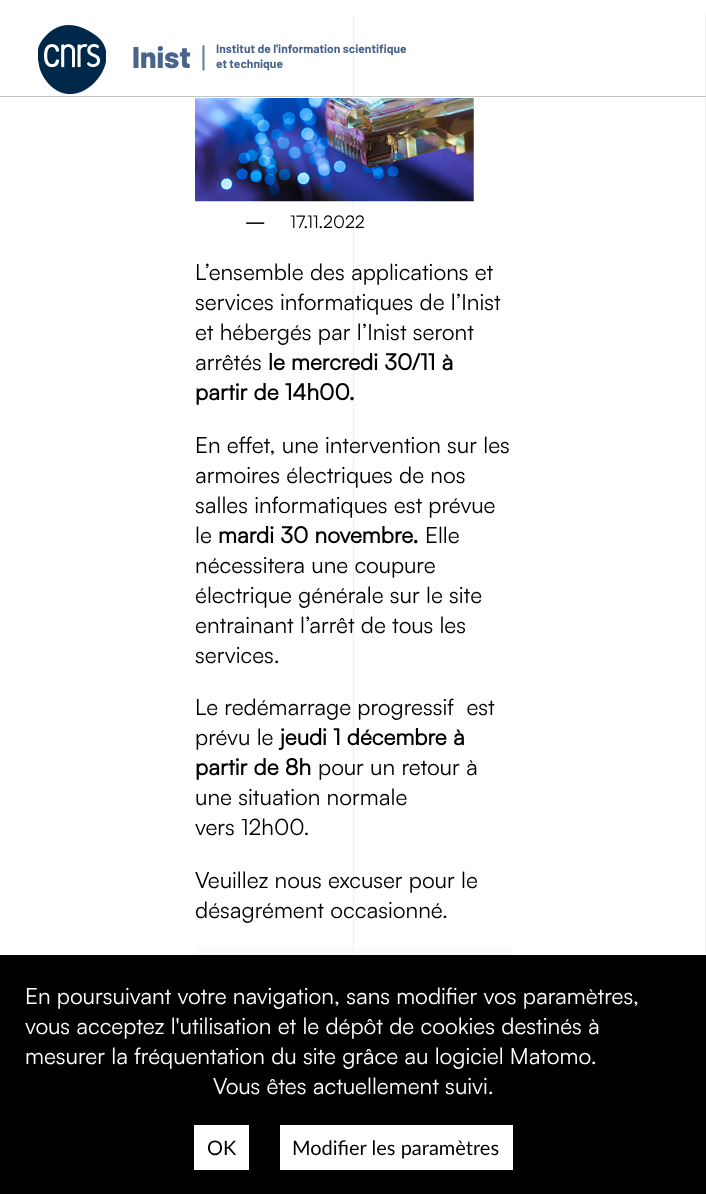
<!DOCTYPE html>
<meta charset="utf-8">
<style>body { margin: 0 } canvas { display: block }</style>
<canvas id="canvas" width="706" height="1194"></canvas>
<img id="img1" src="images/1.png" hidden>
<img id="img2" src="images/2.png" hidden>
<script>
window.onload = function () {
    const canvas = document.getElementById('canvas');
    const context = canvas.getContext('2d');
    context.miterLimit = 4;
    context.fontKerning = 'normal';

    context.fillStyle = 'rgb(255, 255, 255)';
    context.fillRect(0, 0, 706, 1194);
    context.fillStyle = 'rgb(196, 195, 195)';
    context.fillRect(0, 96, 706, 1);
    context.fillStyle = 'rgb(238, 238, 238)';
    context.beginPath();
    context.roundRect(353, 15, 1, 81, 0.5);
    context.fill();
    context.beginPath();
    context.roundRect(705, 15, 1, 81, 0.5);
    context.fill();
    context.drawImage(document.getElementById('img1'), 38, 25, 68, 69);
    context.fillRect(353, 201, 1, 754);
    context.fillRect(705, 98, 1, 857);
    context.drawImage(document.getElementById('img2'), 195, 98, 279, 104);
    context.fillStyle = 'rgba(229, 229, 229, 0.17)';
    context.fillRect(195, 946, 316, 9);
    context.fillStyle = 'rgb(0, 0, 0)';
    context.fillRect(0, 955, 706, 239);
    context.fillStyle = 'rgb(255, 255, 255)';
    context.fillRect(194, 1125, 55, 45);
    context.fillRect(280, 1125, 233, 45);
    context.font = '800 30px Barlow';
    context.fillStyle = 'rgb(73, 100, 140)';
    context.fillText('Inist', 132, 68);
    context.font = '30px Barlow';
    context.fillStyle = 'rgb(109, 131, 163)';
    context.fillText('|', 201, 68);
    context.font = 'bold 12px Barlow';
    context.fillStyle = 'rgb(73, 100, 140)';
    context.fillText('Institut de l\'information scientifique', 216, 53);
    context.fillText('et technique', 216, 68);
    context.font = 'bold 17.5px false';
    context.fillStyle = 'rgb(0, 0, 0)';
    context.fillText('—', 245, 228);
    context.font = '17.5px false';
    context.fillText('17.11.2022', 290, 228);
    context.font = '22.5px false';
    context.fillText('L’ensemble des applications et', 195, 280);
    context.fillText('services informatiques de l’Inist', 195, 310);
    context.fillText('et hébergés par l’Inist seront', 195, 340);
    context.fillText('arrêtés', 195, 370);
    context.font = 'bold 22.5px false';
    context.fillText('le mercredi 30/11 à', 268, 370);
    context.fillText('partir de 14h00.', 195, 400);
    context.font = '22.5px false';
    context.fillText('En effet, une intervention sur les', 195, 453);
    context.fillText('armoires électriques de nos', 195, 483);
    context.fillText('salles informatiques est prévue', 195, 513);
    context.fillText('le', 195, 543);
    context.font = 'bold 22.5px false';
    context.fillText('mardi 30 novembre.', 218, 543);
    context.font = '22.5px false';
    context.fillText('Elle', 425, 543);
    context.fillText('nécessitera une coupure', 195, 573);
    context.fillText('électrique générale sur le site', 195, 603);
    context.fillText('entrainant l’arrêt de tous les', 195, 633);
    context.fillText('services.', 195, 663);
    context.fillText('Le redémarrage progressif  est', 195, 715);
    context.fillText('prévu le', 195, 745);
    context.font = 'bold 22.5px false';
    context.fillText('jeudi 1 décembre à', 280, 745);
    context.fillText('partir de 8h', 195, 775);
    context.font = '22.5px false';
    context.fillText('pour un retour à', 318, 775);
    context.fillText('une situation normale', 195, 805);
    context.fillText('vers 12h00.', 195, 835);
    context.fillText('Veuillez nous excuser pour le', 195, 888);
    context.fillText('désagrément occasionné.', 195, 918);
    context.fillStyle = 'rgb(255, 255, 255)';
    context.fillText('En poursuivant votre navigation, sans modifier vos paramètres,', 25, 1004);
    context.fillText('vous acceptez l\'utilisation et le dépôt de cookies destinés à', 25, 1034);
    context.fillText('mesurer la fréquentation du site grâce au logiciel Matomo.', 25, 1064);
    context.fillText('Vous êtes actuellement suivi.', 213, 1094);
    context.font = '20px Lato';
    context.fillStyle = 'rgb(0, 0, 0)';
    context.fillText('OK', 207, 1155);
    context.fillText('Modifier les paramètres', 292, 1155);
};
</script>
